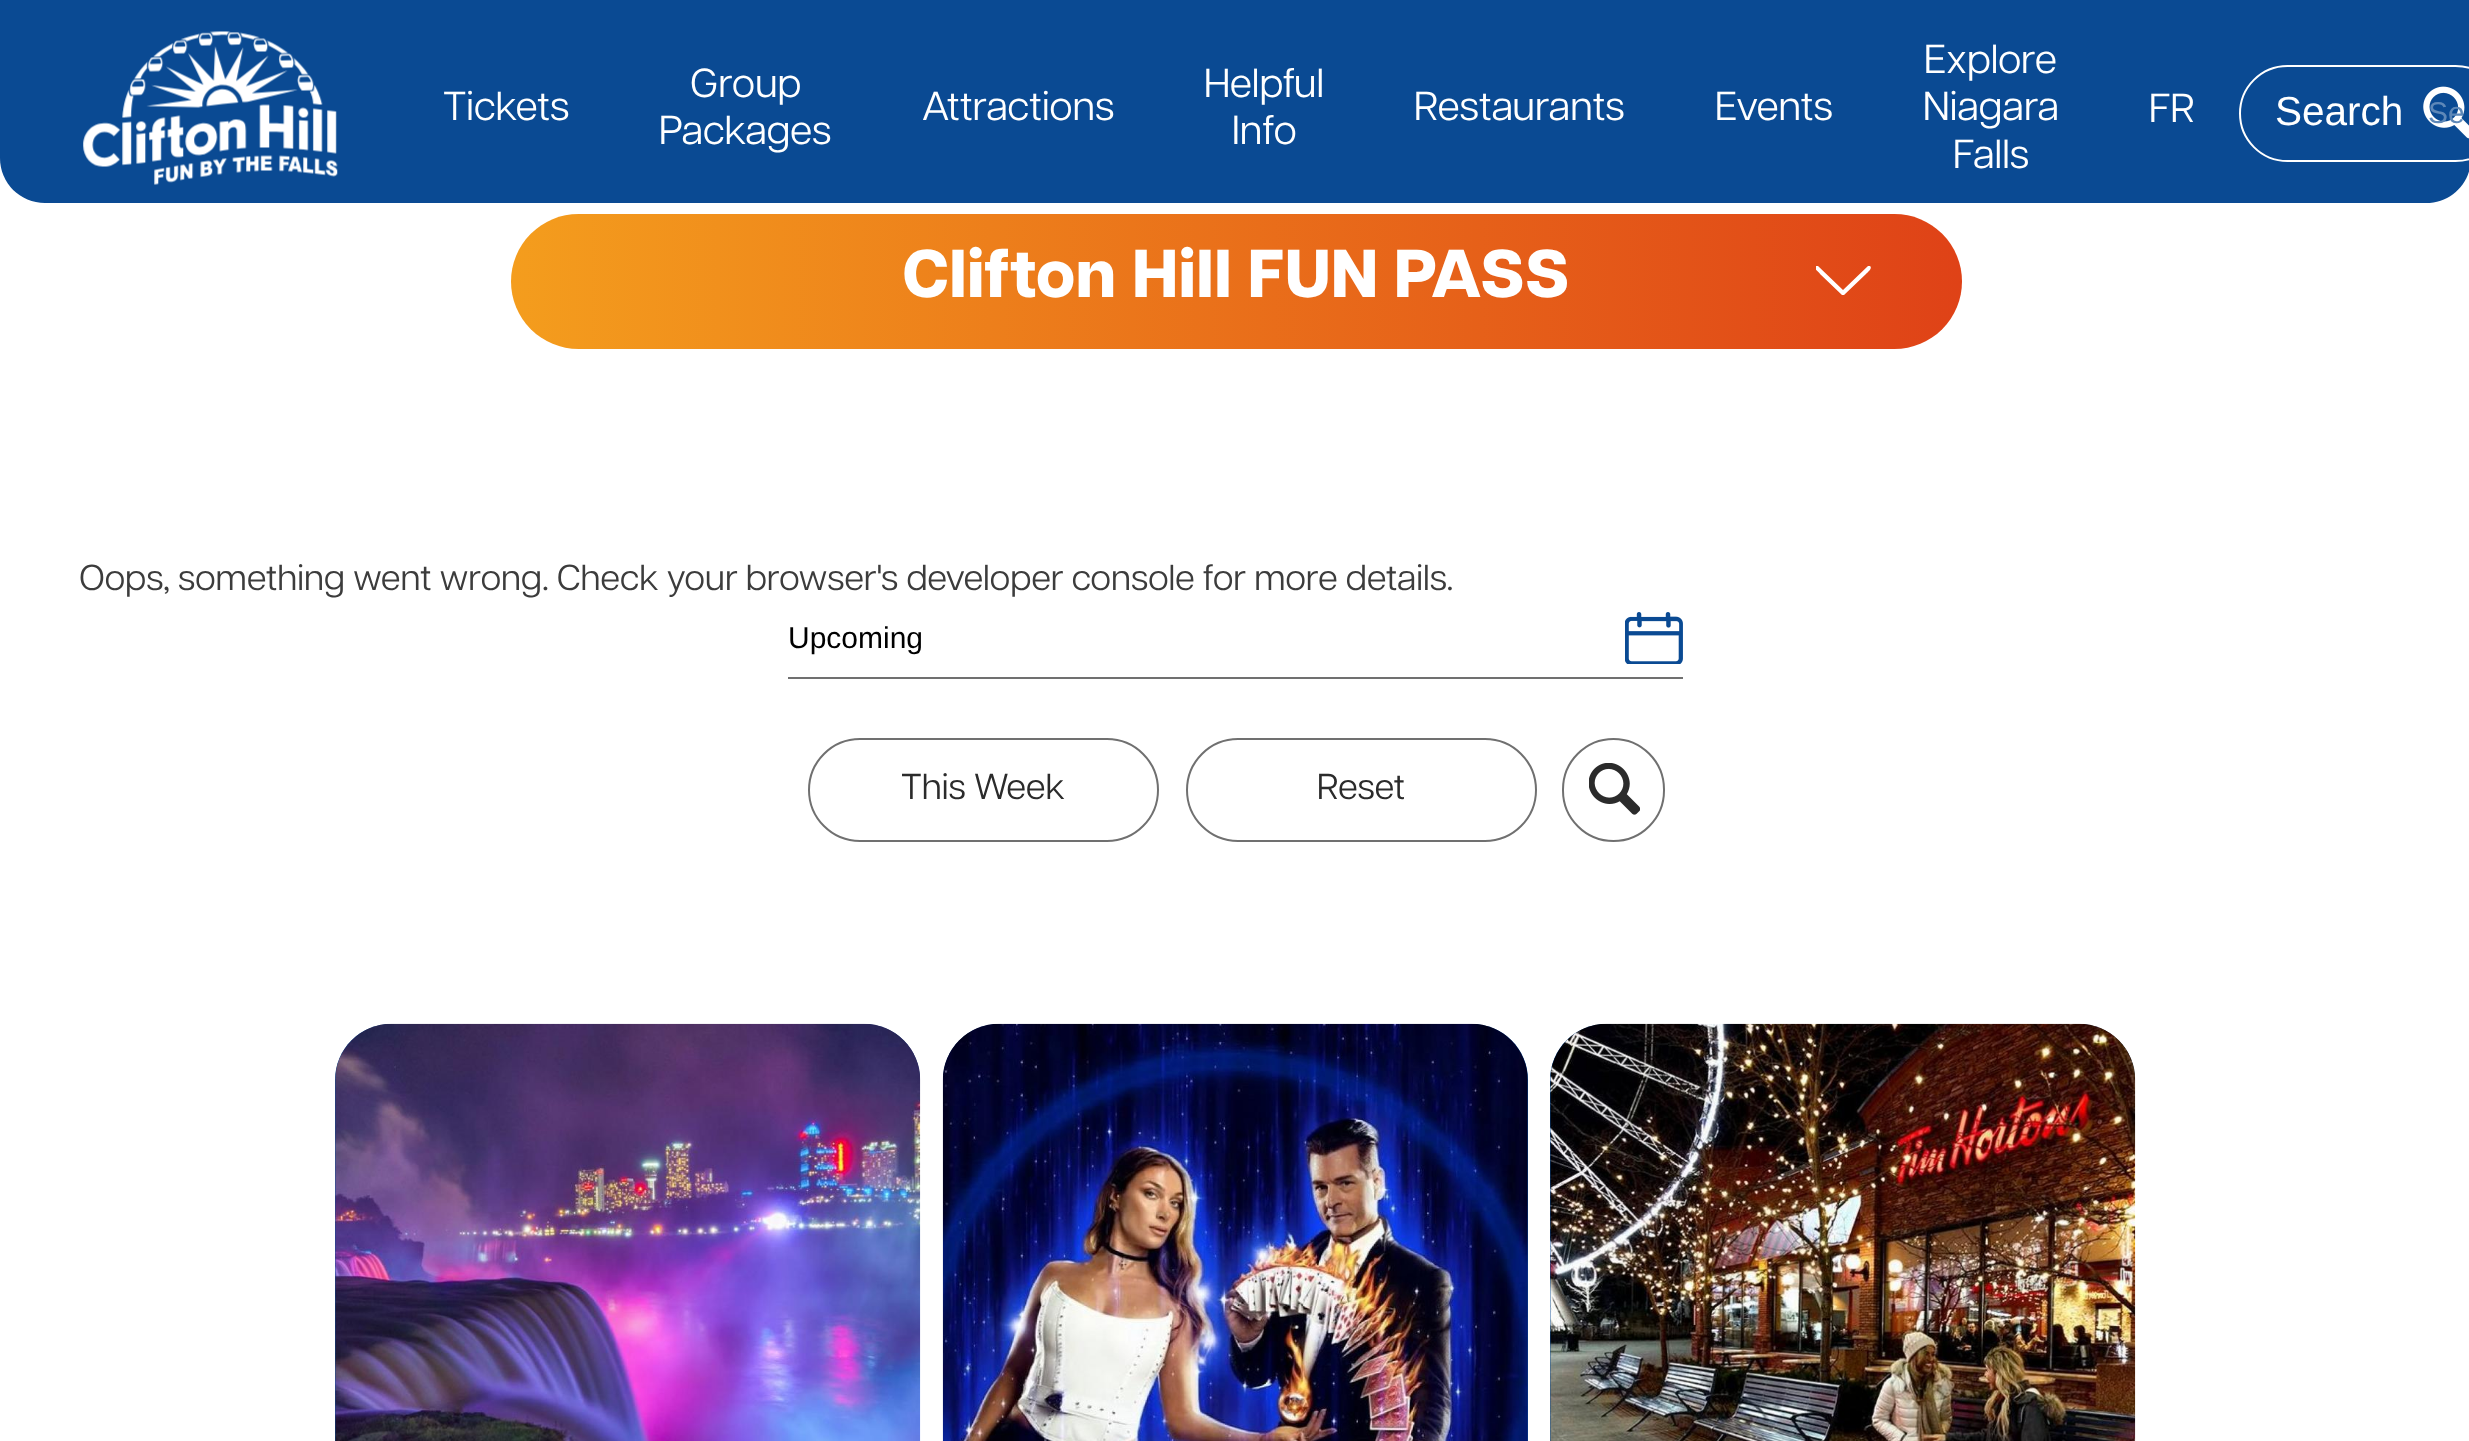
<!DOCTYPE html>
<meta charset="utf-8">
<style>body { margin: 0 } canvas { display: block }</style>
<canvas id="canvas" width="2469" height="1441"></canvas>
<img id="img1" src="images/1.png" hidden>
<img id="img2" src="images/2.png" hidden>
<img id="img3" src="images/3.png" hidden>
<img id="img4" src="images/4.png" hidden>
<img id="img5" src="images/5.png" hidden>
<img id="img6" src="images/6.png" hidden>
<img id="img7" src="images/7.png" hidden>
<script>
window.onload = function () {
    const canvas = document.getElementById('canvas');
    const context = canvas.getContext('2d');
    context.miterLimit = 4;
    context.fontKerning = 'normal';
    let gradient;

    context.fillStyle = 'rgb(255, 255, 255)';
    context.fillRect(0, 0, 2469, 1441);
    context.fillStyle = 'rgb(10, 74, 147)';
    context.beginPath();
    context.moveTo(0, 0);
    context.lineTo(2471, 0);
    context.lineTo(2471, 158);
    context.bezierCurveTo(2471, 183, 2451, 203, 2426, 203);
    context.lineTo(45, 203);
    context.bezierCurveTo(20, 203, 0, 183, 0, 158);
    context.closePath();
    context.fill();
    context.drawImage(document.getElementById('img1'), 83, 31, 255, 154);
    context.drawImage(document.getElementById('img2'), 2423, 86, 46, 53);
    context.beginPath();
    context.roundRect(2240, 66, 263, 95, 47.5);
    context.strokeStyle = 'rgb(255, 255, 255)';
    context.lineWidth = 2;
    context.stroke();
    gradient = context.createLinearGradient(510, 281, 1961, 281);
    gradient.addColorStop(0, 'rgb(244, 157, 29)');
    gradient.addColorStop(1, 'rgb(223, 66, 23)');
    context.fillStyle = gradient;
    context.beginPath();
    context.roundRect(511, 214, 1451, 135, 67.5);
    context.fill();
    context.save();
    context.beginPath();
    context.rect(1816, 266, 56, 29);
    context.clip();
    context.fillStyle = 'rgb(255, 255, 255)';
    context.beginPath();
    context.moveTo(1818, 266);
    context.lineTo(1816, 266);
    context.bezierCurveTo(1811, 267, 1820, 273, 1820, 274);
    context.lineTo(1842, 295);
    context.lineTo(1844, 295);
    context.lineTo(1866, 274);
    context.bezierCurveTo(1867, 273, 1873, 268, 1870, 266);
    context.lineTo(1868, 266);
    context.lineTo(1843, 290);
    context.closePath();
    context.fill();
    context.restore();
    context.drawImage(document.getElementById('img3'), 1625, 612, 58, 52);
    context.fillStyle = 'rgb(112, 112, 112)';
    context.fillRect(788, 677, 895, 2);
    context.beginPath();
    context.roundRect(809, 739, 349, 102, 51);
    context.strokeStyle = 'rgb(112, 112, 112)';
    context.stroke();
    context.beginPath();
    context.roundRect(1187, 739, 349, 102, 51);
    context.stroke();
    context.beginPath();
    context.roundRect(1563, 739, 101, 102, 50.5);
    context.stroke();
    context.drawImage(document.getElementById('img4'), 1589, 763, 51, 52);
    context.fillStyle = 'rgb(10, 74, 147)';
    context.beginPath();
    context.moveTo(391, 1024);
    context.lineTo(864, 1024);
    context.bezierCurveTo(895, 1024, 920, 1049, 920, 1080);
    context.lineTo(920, 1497);
    context.lineTo(335, 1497);
    context.lineTo(335, 1080);
    context.bezierCurveTo(335, 1049, 360, 1024, 391, 1024);
    context.closePath();
    context.fill();
    context.drawImage(document.getElementById('img5'), 335, 1023, 586, 418);
    context.beginPath();
    context.moveTo(999, 1024);
    context.lineTo(1472, 1024);
    context.bezierCurveTo(1503, 1024, 1528, 1049, 1528, 1080);
    context.lineTo(1528, 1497);
    context.lineTo(943, 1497);
    context.lineTo(943, 1080);
    context.bezierCurveTo(943, 1049, 968, 1024, 999, 1024);
    context.closePath();
    context.fill();
    context.drawImage(document.getElementById('img6'), 942, 1023, 586, 418);
    context.beginPath();
    context.moveTo(1606, 1024);
    context.lineTo(2079, 1024);
    context.bezierCurveTo(2110, 1024, 2135, 1049, 2135, 1080);
    context.lineTo(2135, 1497);
    context.lineTo(1550, 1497);
    context.lineTo(1550, 1080);
    context.bezierCurveTo(1550, 1049, 1575, 1024, 1606, 1024);
    context.closePath();
    context.fill();
    context.drawImage(document.getElementById('img7'), 1550, 1023, 586, 418);
    context.font = '40.5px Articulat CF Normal';
    context.fillStyle = 'rgb(255, 255, 255)';
    context.fillText('Tickets', 443, 120);
    context.fillText('Group', 690, 97);
    context.fillText('Packages', 659, 144);
    context.fillText('Attractions', 922, 120);
    context.fillText('Helpful', 1204, 97);
    context.fillText('Info', 1232, 144);
    context.fillText('Restaurants', 1414, 120);
    context.fillText('Events', 1715, 120);
    context.fillText('Explore', 1924, 73);
    context.fillText('Niagara', 1923, 120);
    context.fillText('Falls', 1953, 168);
    context.fillText('FR', 2149, 122);
    context.font = '40.5px Liberation Sans';
    context.fillText('Search', 2275, 125);
    context.font = '30px Liberation Sans';
    context.fillStyle = 'rgb(94, 136, 184)';
    context.fillText('Se', 2428, 123);
    context.font = '800 67.5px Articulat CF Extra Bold';
    context.fillStyle = 'rgb(255, 255, 255)';
    context.fillText('Clifton Hill FUN PASS', 902, 297);
    context.font = '36px Articulat CF Normal';
    context.fillStyle = 'rgb(60, 60, 60)';
    context.fillText('Oops, something went wrong. Check your browser\'s developer console for more details.', 79, 590);
    context.font = '30px Liberation Sans';
    context.fillStyle = 'rgb(0, 0, 0)';
    context.fillText('Upcoming', 788, 648);
    context.font = '36px Articulat CF Normal';
    context.fillStyle = 'rgb(43, 43, 43)';
    context.fillText('This Week', 901, 799);
    context.fillText('Reset', 1317, 799);
};
</script>
